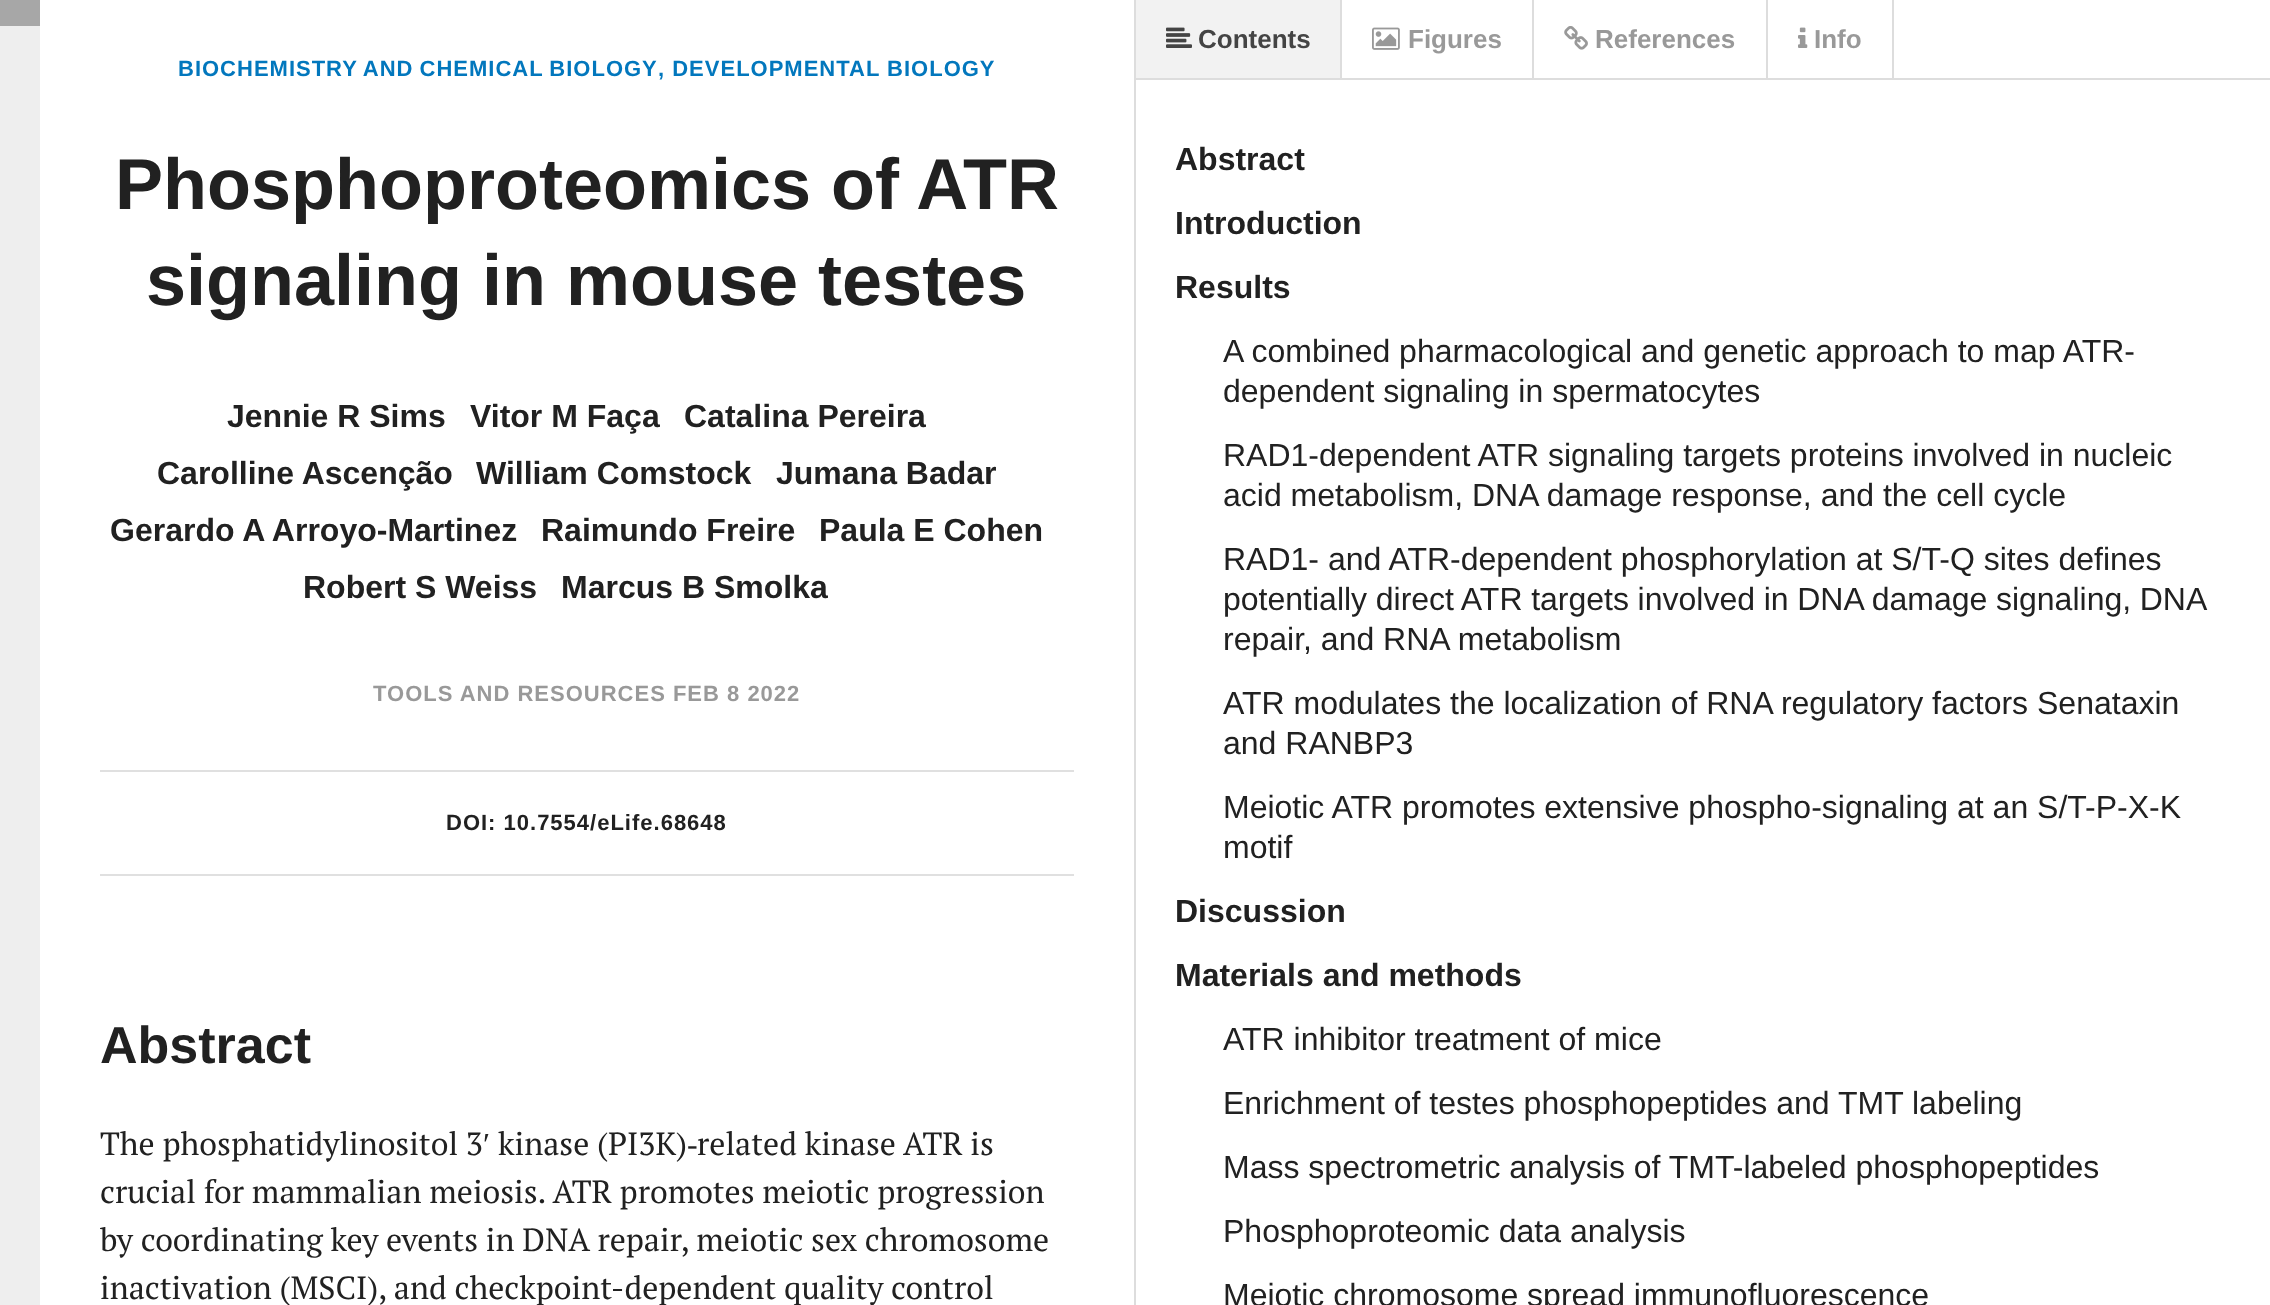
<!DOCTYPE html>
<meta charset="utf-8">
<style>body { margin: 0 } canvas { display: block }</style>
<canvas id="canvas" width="2270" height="1305"></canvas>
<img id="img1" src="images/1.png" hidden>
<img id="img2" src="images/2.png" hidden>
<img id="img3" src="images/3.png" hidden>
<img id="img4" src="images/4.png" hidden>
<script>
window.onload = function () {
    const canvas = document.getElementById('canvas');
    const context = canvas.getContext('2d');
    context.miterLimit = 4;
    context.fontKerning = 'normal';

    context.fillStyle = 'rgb(255, 255, 255)';
    context.fillRect(0, 0, 2270, 1305);
    context.fillStyle = 'rgb(221, 221, 221)';
    context.fillRect(1134, 0, 2, 1305);
    context.fillStyle = 'rgb(238, 238, 238)';
    context.fillRect(0, 26, 40, 1279);
    context.fillStyle = 'rgb(167, 167, 167)';
    context.fillRect(0, 0, 40, 26);
    context.fillStyle = 'rgb(224, 224, 224)';
    context.fillRect(100, 770, 974, 2);
    context.fillRect(100, 874, 974, 2);
    context.fillStyle = 'rgb(221, 221, 221)';
    context.fillRect(1136, 78, 1134, 2);
    context.fillStyle = 'rgb(242, 242, 242)';
    context.fillRect(1136, 0, 204, 78);
    context.save();
    context.beginPath();
    context.rect(1136, 0, 1134, 78);
    context.clip();
    context.fillStyle = 'rgb(221, 221, 221)';
    context.beginPath();
    context.moveTo(1342, 0);
    context.lineTo(1342, 86);
    context.lineTo(1340, 80);
    context.lineTo(1340, 0);
    context.closePath();
    context.fill();
    context.restore();
    context.drawImage(document.getElementById('img1'), 1166, 27, 26, 21);
    context.fillStyle = 'rgb(221, 221, 221)';
    context.fillRect(1532, 0, 2, 78);
    context.drawImage(document.getElementById('img2'), 1372, 27, 28, 23);
    context.fillRect(1766, 0, 2, 78);
    context.drawImage(document.getElementById('img3'), 1564, 26, 24, 24);
    context.fillRect(1892, 0, 2, 78);
    context.drawImage(document.getElementById('img4'), 1798, 27, 10, 21);
    context.letterSpacing = '1px';
    context.wordSpacing = '-1px';
    context.font = 'bold 22px Liberation Sans';
    context.fillStyle = 'rgb(2, 119, 189)';
    context.fillText('BIOCHEMISTRY AND CHEMICAL BIOLOGY', 178, 76);
    context.wordSpacing = '0px';
    context.fillText(', DEVELOPMENTAL BIOLOGY', 658, 76);
    context.letterSpacing = '0px';
    context.font = 'bold 72px Liberation Sans';
    context.fillStyle = 'rgb(33, 33, 33)';
    context.fillText('Phosphoproteomics of ATR', 115, 209);
    context.fillText('signaling in mouse testes', 146, 305);
    context.font = 'bold 32px Liberation Sans';
    context.fillText('Jennie R Sims', 227, 427);
    context.fillText('Vitor M Faça', 470, 427);
    context.fillText('Catalina Pereira', 684, 427);
    context.fillText('Carolline Ascenção', 157, 484);
    context.fillText('William Comstock', 476, 484);
    context.fillText('Jumana Badar', 776, 484);
    context.fillText('Gerardo A Arroyo-Martinez', 110, 541);
    context.fillText('Raimundo Freire', 541, 541);
    context.fillText('Paula E Cohen', 819, 541);
    context.fillText('Robert S Weiss', 303, 598);
    context.fillText('Marcus B Smolka', 561, 598);
    context.letterSpacing = '1px';
    context.font = 'bold 22px Liberation Sans';
    context.fillStyle = 'rgb(153, 153, 153)';
    context.fillText('TOOLS AND RESOURCES FEB 8 2022', 373, 701);
    context.fillStyle = 'rgb(33, 33, 33)';
    context.fillText('DOI: 10.7554/eLife.68648', 446, 830);
    context.letterSpacing = '0px';
    context.font = 'bold 52px Liberation Sans';
    context.fillText('Abstract', 100, 1063);
    context.font = '32px PT Serif';
    context.fillText('The phosphatidylinositol 3', 100, 1155);
    context.font = '32px Liberation Serif';
    context.fillText('′', 483, 1155);
    context.font = '32px PT Serif';
    context.fillText('kinase (PI3K)', 498, 1155);
    context.fillText('related kinase ATR is', 697, 1155);
    context.font = '32px Liberation Serif';
    context.fillText('‐', 687, 1155);
    context.font = '32px PT Serif';
    context.fillText('crucial for mammalian meiosis. ATR promotes meiotic progression', 100, 1203);
    context.fillText('by coordinating key events in DNA repair, meiotic sex chromosome', 100, 1251);
    context.fillText('inactivation (MSCI), and checkpoint-dependent quality control', 100, 1299);
    context.font = 'bold 26px Liberation Sans';
    context.fillStyle = 'rgb(68, 68, 68)';
    context.fillText('Contents', 1198, 48);
    context.fillStyle = 'rgb(153, 153, 153)';
    context.fillText('Figures', 1408, 48);
    context.fillText('References', 1595, 48);
    context.fillText('Info', 1814, 48);
    context.font = 'bold 32px Liberation Sans';
    context.fillStyle = 'rgb(33, 33, 33)';
    context.fillText('Abstract', 1175, 170);
    context.fillText('Introduction', 1175, 234);
    context.fillText('Results', 1175, 298);
    context.font = '32px Liberation Sans';
    context.fillText('A combined pharmacological and genetic approach to map ATR-', 1223, 362);
    context.fillText('dependent signaling in spermatocytes', 1223, 402);
    context.fillText('RAD1-dependent ATR signaling targets proteins involved in nucleic', 1223, 466);
    context.fillText('acid metabolism, DNA damage response, and the cell cycle', 1223, 506);
    context.fillText('RAD1- and ATR-dependent phosphorylation at S/T-Q sites defines', 1223, 570);
    context.wordSpacing = '-0.25px';
    context.fillText('potentially direct ATR targets involved in DNA damage signaling, DNA', 1223, 610);
    context.wordSpacing = '0px';
    context.fillText('repair, and RNA metabolism', 1223, 650);
    context.fillText('ATR modulates the localization of RNA regulatory factors Senataxin', 1223, 714);
    context.fillText('and RANBP3', 1223, 754);
    context.fillText('Meiotic ATR promotes extensive phospho-signaling at an S/T-P-X-K', 1223, 818);
    context.fillText('motif', 1223, 858);
    context.font = 'bold 32px Liberation Sans';
    context.fillText('Discussion', 1175, 922);
    context.fillText('Materials and methods', 1175, 986);
    context.font = '32px Liberation Sans';
    context.fillText('ATR inhibitor treatment of mice', 1223, 1050);
    context.fillText('Enrichment of testes phosphopeptides and TMT labeling', 1223, 1114);
    context.fillText('Mass spectrometric analysis of TMT-labeled phosphopeptides', 1223, 1178);
    context.fillText('Phosphoproteomic data analysis', 1223, 1242);
    context.fillText('Meiotic chromosome spread immunofluorescence', 1223, 1306);
};
</script>
